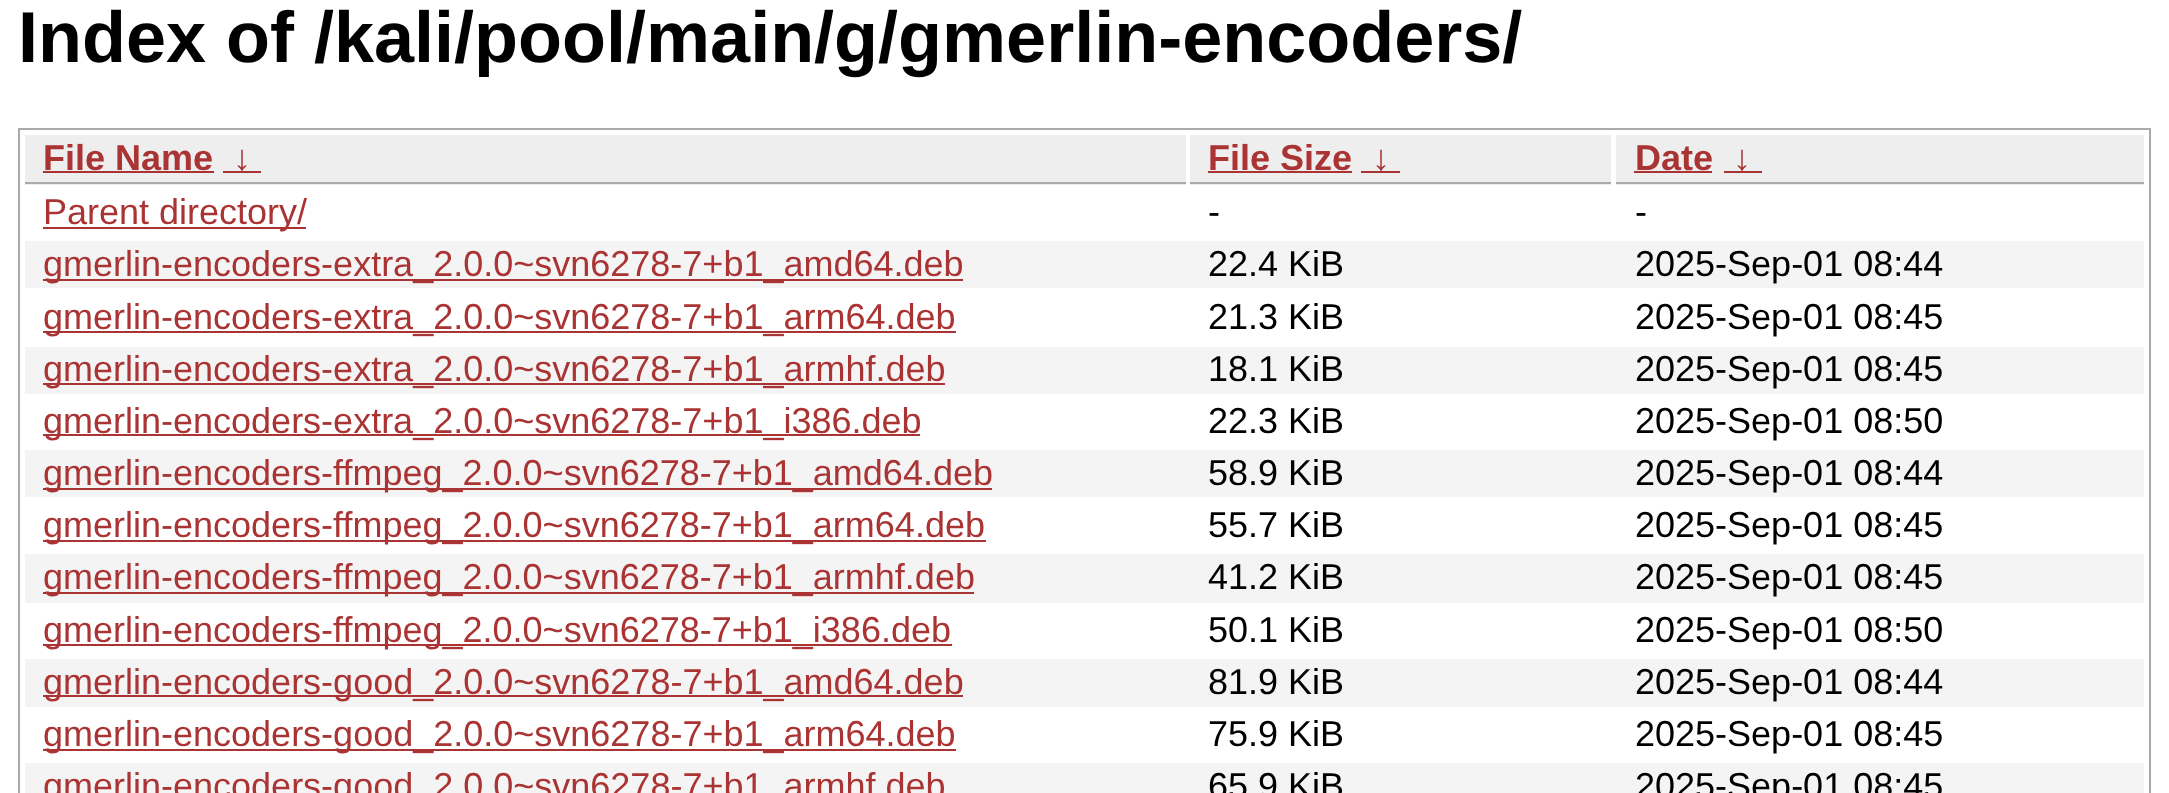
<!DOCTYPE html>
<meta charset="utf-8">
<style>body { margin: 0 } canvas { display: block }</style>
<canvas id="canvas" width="2169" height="793"></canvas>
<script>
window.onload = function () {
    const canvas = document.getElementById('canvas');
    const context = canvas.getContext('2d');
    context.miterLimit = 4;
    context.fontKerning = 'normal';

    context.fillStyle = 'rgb(255, 255, 255)';
    context.fillRect(0, 0, 2169, 793);
    context.strokeStyle = 'rgb(170, 170, 170)';
    context.lineWidth = 2;
    context.strokeRect(19, 129, 2131, 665);
    context.fillStyle = 'rgb(238, 238, 238)';
    context.fillRect(25, 135, 1161, 50);
    context.fillStyle = 'rgb(170, 170, 170)';
    context.fillRect(25, 182, 1161, 2);
    context.fillStyle = 'rgb(170, 51, 51)';
    context.fillRect(43, 171, 171, 2);
    context.fillRect(223, 171, 38, 2);
    context.fillStyle = 'rgb(238, 238, 238)';
    context.fillRect(1190, 135, 421, 50);
    context.fillStyle = 'rgb(170, 170, 170)';
    context.fillRect(1190, 182, 421, 2);
    context.fillStyle = 'rgb(170, 51, 51)';
    context.fillRect(1208, 171, 144, 2);
    context.fillRect(1361, 171, 39, 2);
    context.fillStyle = 'rgb(238, 238, 238)';
    context.fillRect(1616, 135, 528, 50);
    context.fillStyle = 'rgb(170, 170, 170)';
    context.fillRect(1616, 182, 528, 2);
    context.fillStyle = 'rgb(170, 51, 51)';
    context.fillRect(1634, 171, 78, 2);
    context.fillRect(1724, 171, 38, 2);
    context.fillRect(43, 227, 263, 2);
    context.fillStyle = 'rgb(244, 244, 244)';
    context.fillRect(25, 241, 2119, 47);
    context.fillStyle = 'rgb(170, 51, 51)';
    context.fillRect(43, 279, 920, 2);
    context.fillRect(43, 331, 913, 2);
    context.fillStyle = 'rgb(244, 244, 244)';
    context.fillRect(25, 347, 2119, 47);
    context.fillStyle = 'rgb(170, 51, 51)';
    context.fillRect(43, 383, 902, 2);
    context.fillRect(43, 434, 877, 2);
    context.fillStyle = 'rgb(244, 244, 244)';
    context.fillRect(25, 450, 2119, 47);
    context.fillStyle = 'rgb(170, 51, 51)';
    context.fillRect(43, 488, 949, 2);
    context.fillRect(43, 540, 943, 2);
    context.fillStyle = 'rgb(244, 244, 244)';
    context.fillRect(25, 554, 2119, 49);
    context.fillStyle = 'rgb(170, 51, 51)';
    context.fillRect(43, 592, 931, 2);
    context.fillRect(43, 644, 909, 2);
    context.fillStyle = 'rgb(244, 244, 244)';
    context.fillRect(25, 659, 2119, 48);
    context.fillStyle = 'rgb(170, 51, 51)';
    context.fillRect(43, 695, 920, 2);
    context.fillRect(43, 749, 913, 2);
    context.fillStyle = 'rgb(244, 244, 244)';
    context.fillRect(25, 763, 2119, 30);
    context.font = 'bold 72px Liberation Sans';
    context.fillStyle = 'rgb(0, 0, 0)';
    context.fillText('Index of /kali/pool/main/g/gmerlin-encoders/', 18, 62);
    context.font = 'bold 36px Liberation Sans';
    context.fillStyle = 'rgb(170, 51, 51)';
    context.fillText('File Name', 43, 170);
    context.fillText('↓', 233, 170);
    context.fillText('File Size', 1208, 170);
    context.fillText('↓', 1372, 170);
    context.fillText('Date', 1635, 170);
    context.fillText('↓', 1733, 170);
    context.font = '36px Liberation Sans';
    context.fillText('Parent directory/', 43, 224);
    context.fillStyle = 'rgb(0, 0, 0)';
    context.fillText('-', 1208, 224);
    context.fillText('-', 1635, 224);
    context.fillStyle = 'rgb(170, 51, 51)';
    context.fillText('gmerlin-encoders-extra_2.0.0~svn6278-7+b1_amd64.deb', 43, 276);
    context.fillStyle = 'rgb(0, 0, 0)';
    context.fillText('22.4 KiB', 1208, 276);
    context.fillText('2025-Sep-01 08:44', 1635, 276);
    context.fillStyle = 'rgb(170, 51, 51)';
    context.fillText('gmerlin-encoders-extra_2.0.0~svn6278-7+b1_arm64.deb', 43, 329);
    context.fillStyle = 'rgb(0, 0, 0)';
    context.fillText('21.3 KiB', 1208, 329);
    context.fillText('2025-Sep-01 08:45', 1635, 329);
    context.fillStyle = 'rgb(170, 51, 51)';
    context.fillText('gmerlin-encoders-extra_2.0.0~svn6278-7+b1_armhf.deb', 43, 381);
    context.fillStyle = 'rgb(0, 0, 0)';
    context.fillText('18.1 KiB', 1208, 381);
    context.fillText('2025-Sep-01 08:45', 1635, 381);
    context.fillStyle = 'rgb(170, 51, 51)';
    context.fillText('gmerlin-encoders-extra_2.0.0~svn6278-7+b1_i386.deb', 43, 433);
    context.fillStyle = 'rgb(0, 0, 0)';
    context.fillText('22.3 KiB', 1208, 433);
    context.fillText('2025-Sep-01 08:50', 1635, 433);
    context.fillStyle = 'rgb(170, 51, 51)';
    context.fillText('gmerlin-encoders-ffmpeg_2.0.0~svn6278-7+b1_amd64.deb', 43, 485);
    context.fillStyle = 'rgb(0, 0, 0)';
    context.fillText('58.9 KiB', 1208, 485);
    context.fillText('2025-Sep-01 08:44', 1635, 485);
    context.fillStyle = 'rgb(170, 51, 51)';
    context.fillText('gmerlin-encoders-ffmpeg_2.0.0~svn6278-7+b1_arm64.deb', 43, 537);
    context.fillStyle = 'rgb(0, 0, 0)';
    context.fillText('55.7 KiB', 1208, 537);
    context.fillText('2025-Sep-01 08:45', 1635, 537);
    context.fillStyle = 'rgb(170, 51, 51)';
    context.fillText('gmerlin-encoders-ffmpeg_2.0.0~svn6278-7+b1_armhf.deb', 43, 589);
    context.fillStyle = 'rgb(0, 0, 0)';
    context.fillText('41.2 KiB', 1208, 589);
    context.fillText('2025-Sep-01 08:45', 1635, 589);
    context.fillStyle = 'rgb(170, 51, 51)';
    context.fillText('gmerlin-encoders-ffmpeg_2.0.0~svn6278-7+b1_i386.deb', 43, 642);
    context.fillStyle = 'rgb(0, 0, 0)';
    context.fillText('50.1 KiB', 1208, 642);
    context.fillText('2025-Sep-01 08:50', 1635, 642);
    context.fillStyle = 'rgb(170, 51, 51)';
    context.fillText('gmerlin-encoders-good_2.0.0~svn6278-7+b1_amd64.deb', 43, 694);
    context.fillStyle = 'rgb(0, 0, 0)';
    context.fillText('81.9 KiB', 1208, 694);
    context.fillText('2025-Sep-01 08:44', 1635, 694);
    context.fillStyle = 'rgb(170, 51, 51)';
    context.fillText('gmerlin-encoders-good_2.0.0~svn6278-7+b1_arm64.deb', 43, 746);
    context.fillStyle = 'rgb(0, 0, 0)';
    context.fillText('75.9 KiB', 1208, 746);
    context.fillText('2025-Sep-01 08:45', 1635, 746);
    context.fillStyle = 'rgb(170, 51, 51)';
    context.fillText('gmerlin-encoders-good_2.0.0~svn6278-7+b1_armhf.deb', 43, 798);
    context.fillStyle = 'rgb(0, 0, 0)';
    context.fillText('65.9 KiB', 1208, 798);
    context.fillText('2025-Sep-01 08:45', 1635, 798);
};
</script>
